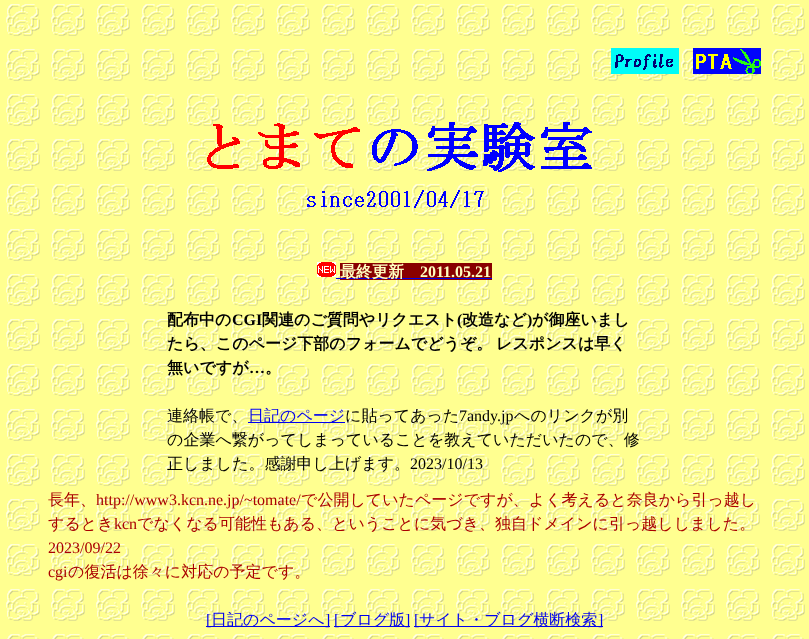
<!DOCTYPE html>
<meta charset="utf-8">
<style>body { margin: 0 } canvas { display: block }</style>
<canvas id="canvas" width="809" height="639"></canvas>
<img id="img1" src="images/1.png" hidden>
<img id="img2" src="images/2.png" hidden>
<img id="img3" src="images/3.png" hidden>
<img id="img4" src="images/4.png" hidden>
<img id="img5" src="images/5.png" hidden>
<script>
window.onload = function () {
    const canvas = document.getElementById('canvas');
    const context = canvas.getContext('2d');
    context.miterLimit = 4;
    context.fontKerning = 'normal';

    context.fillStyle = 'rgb(255, 255, 255)';
    context.fillRect(0, 0, 809, 639);
    context.drawImage(document.getElementById('img1'), 0, 0, 809, 639);
    context.drawImage(document.getElementById('img2'), 611, 48, 68, 26);
    context.drawImage(document.getElementById('img3'), 693, 48, 68, 26);
    context.drawImage(document.getElementById('img4'), 207, 122, 385, 86);
    context.drawImage(document.getElementById('img5'), 317, 262, 19, 15);
    context.fillStyle = 'rgb(0, 0, 238)';
    context.fillRect(336, 278, 4, 1);
    context.fillStyle = 'rgb(136, 0, 0)';
    context.fillRect(340, 263, 152, 17);
    context.fillStyle = 'rgb(0, 0, 238)';
    context.fillRect(340, 278, 152, 1);
    context.fillRect(248, 422, 97, 1);
    context.fillRect(206, 626, 124, 1);
    context.fillRect(334, 626, 76, 1);
    context.fillRect(414, 626, 189, 1);
    context.font = 'bold 16px WenQuanYi Zen Hei';
    context.fillStyle = 'rgb(255, 255, 192)';
    context.fillText('最終更新', 340, 277);
    context.font = 'bold 16px Liberation Serif';
    context.fillText('2011.05.21', 420, 277);
    context.font = 'bold 16px WenQuanYi Zen Hei';
    context.fillStyle = 'rgb(0, 0, 0)';
    context.fillText('配布中の', 167, 325);
    context.font = 'bold 16px Liberation Serif';
    context.fillText('CGI', 232, 325);
    context.font = 'bold 16px WenQuanYi Zen Hei';
    context.fillText('関連のご質問やリクエスト', 262, 325);
    context.font = 'bold 16px Liberation Serif';
    context.fillText('(', 457, 325);
    context.font = 'bold 16px WenQuanYi Zen Hei';
    context.fillText('改造など', 462, 325);
    context.font = 'bold 16px Liberation Serif';
    context.fillText(')', 527, 325);
    context.font = 'bold 16px WenQuanYi Zen Hei';
    context.fillText('が御座いまし', 532, 325);
    context.wordSpacing = '-1px';
    context.fillText('たら、このページ下部のフォームでどうぞ。 レスポンスは早く', 167, 349);
    context.wordSpacing = '0px';
    context.fillText('無いですが', 167, 373);
    context.font = 'bold 16px Liberation Serif';
    context.fillText('…', 249, 373);
    context.font = 'bold 16px WenQuanYi Zen Hei';
    context.fillText('。', 265, 373);
    context.font = '500 16px WenQuanYi Zen Hei';
    context.fillText('連絡帳で、', 167, 421);
    context.fillStyle = 'rgb(0, 0, 238)';
    context.fillText('日記のページ', 248, 421);
    context.fillStyle = 'rgb(0, 0, 0)';
    context.fillText('に貼ってあった', 345, 421);
    context.font = '16px Liberation Serif';
    context.fillText('7andy.jp', 459, 421);
    context.font = '500 16px WenQuanYi Zen Hei';
    context.fillText('へのリンクが別', 514, 421);
    context.fillText('の企業へ繋がってしまっていることを教えていただいたので、修', 167, 445);
    context.fillText('正しました。感謝申し上げます。', 167, 469);
    context.font = '16px Liberation Serif';
    context.fillText('2023/10/13', 410, 469);
    context.font = '500 16px WenQuanYi Zen Hei';
    context.fillStyle = 'rgb(170, 0, 0)';
    context.fillText('長年、', 48, 505);
    context.font = '16px Liberation Serif';
    context.fillText('http://www3.kcn.ne.jp/~tomate/', 96, 505);
    context.font = '500 16px WenQuanYi Zen Hei';
    context.fillText('で公開していたページですが、よく考えると奈良から引っ越し', 301, 505);
    context.fillText('するとき', 48, 529);
    context.font = '16px Liberation Serif';
    context.fillText('kcn', 114, 529);
    context.font = '500 16px WenQuanYi Zen Hei';
    context.fillText('でなくなる可能性もある、ということに気づき、独自ドメインに引っ越ししました。', 137, 529);
    context.font = '16px Liberation Serif';
    context.fillText('2023/09/22', 48, 553);
    context.fillText('cgi', 48, 577);
    context.font = '500 16px WenQuanYi Zen Hei';
    context.fillText('の復活は徐々に対応の予定です。', 68, 577);
    context.font = '16px Liberation Serif';
    context.fillStyle = 'rgb(0, 0, 238)';
    context.fillText('[', 206, 625);
    context.font = '500 16px WenQuanYi Zen Hei';
    context.fillText('日記のページへ', 211, 625);
    context.font = '16px Liberation Serif';
    context.fillText(']', 325, 625);
    context.fillText('[', 334, 625);
    context.font = '500 16px WenQuanYi Zen Hei';
    context.fillText('ブログ版', 340, 625);
    context.font = '16px Liberation Serif';
    context.fillText(']', 405, 625);
    context.fillText('[', 414, 625);
    context.font = '500 16px WenQuanYi Zen Hei';
    context.fillText('サイト・ブログ横断検索', 419, 625);
    context.font = '16px Liberation Serif';
    context.fillText(']', 598, 625);
};
</script>
